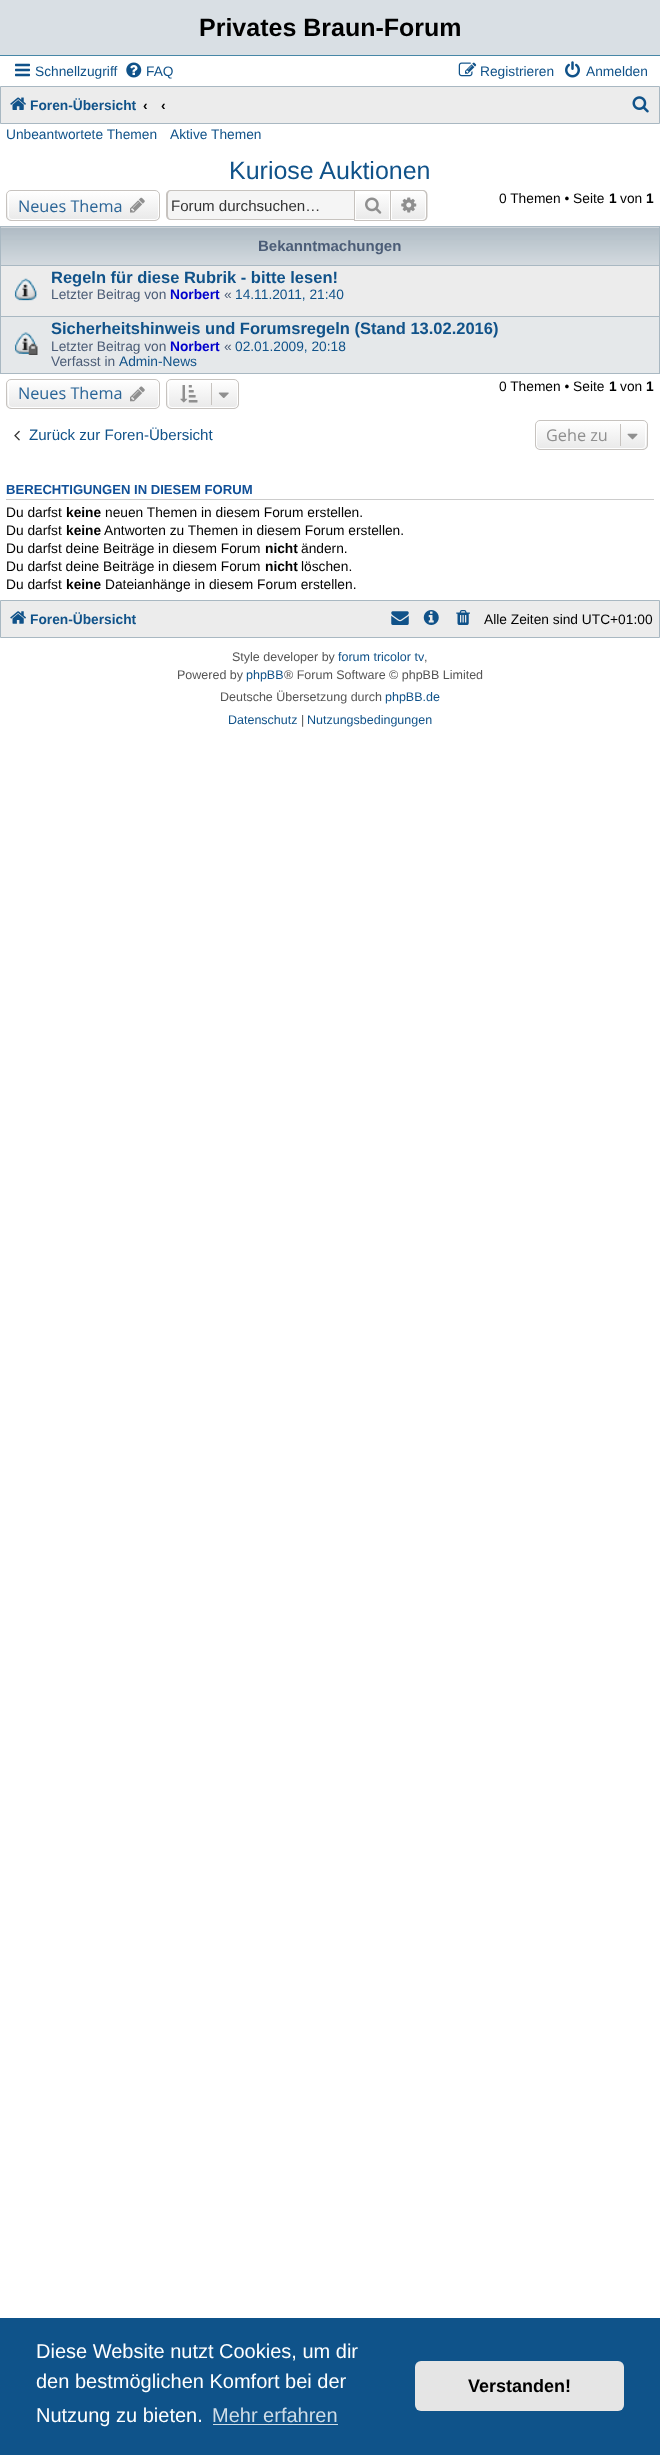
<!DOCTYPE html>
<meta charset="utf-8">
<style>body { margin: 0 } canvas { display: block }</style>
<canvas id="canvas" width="660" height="2455"></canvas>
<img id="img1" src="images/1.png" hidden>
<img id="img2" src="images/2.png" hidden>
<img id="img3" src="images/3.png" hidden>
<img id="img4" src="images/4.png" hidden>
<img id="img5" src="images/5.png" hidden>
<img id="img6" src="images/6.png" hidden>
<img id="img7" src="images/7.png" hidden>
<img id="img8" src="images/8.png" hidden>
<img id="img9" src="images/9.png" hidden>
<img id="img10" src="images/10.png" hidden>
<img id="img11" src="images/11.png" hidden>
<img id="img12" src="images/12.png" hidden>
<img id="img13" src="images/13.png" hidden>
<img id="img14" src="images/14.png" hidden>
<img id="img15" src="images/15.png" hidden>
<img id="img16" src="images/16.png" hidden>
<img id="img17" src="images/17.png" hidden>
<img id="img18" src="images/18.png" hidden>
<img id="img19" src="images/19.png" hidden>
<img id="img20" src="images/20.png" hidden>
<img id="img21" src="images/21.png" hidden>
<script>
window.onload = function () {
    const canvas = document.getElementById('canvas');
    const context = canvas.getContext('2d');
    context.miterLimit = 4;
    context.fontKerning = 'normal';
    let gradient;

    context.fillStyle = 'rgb(255, 255, 255)';
    context.fillRect(0, 0, 660, 2455);
    context.fillStyle = 'rgb(217, 223, 228)';
    context.fillRect(0, 0, 660, 55);
    context.fillStyle = 'rgb(71, 135, 167)';
    context.fillRect(0, 55, 660, 1);
    context.drawImage(document.getElementById('img1'), 15, 63, 15, 14);
    context.drawImage(document.getElementById('img2'), 126, 62, 16, 16);
    context.drawImage(document.getElementById('img3'), 458, 62, 19, 15);
    context.drawImage(document.getElementById('img4'), 565, 61, 15, 17);
    context.fillStyle = 'rgb(236, 236, 236)';
    context.beginPath();
    context.rect(0.5, 86.5, 659, 37);
    context.fill();
    context.strokeStyle = 'rgb(169, 184, 194)';
    context.stroke();
    context.drawImage(document.getElementById('img5'), 10, 97, 16, 13);
    context.drawImage(document.getElementById('img6'), 632, 96, 17, 17);
    context.save();
    context.beginPath();
    context.roundRect(6, 190, 154, 31, 5);
    context.clip();
    gradient = context.createLinearGradient(83, 191, 83, 220);
    gradient.addColorStop(0, 'rgb(255, 255, 255)');
    gradient.addColorStop(1, 'rgb(233, 233, 233)');
    context.fillStyle = gradient;
    context.fillRect(6, 191, 154, 29);
    context.restore();
    context.beginPath();
    context.roundRect(8.5, 191.5, 150, 28, 3.5);
    context.strokeStyle = 'rgb(255, 255, 255)';
    context.stroke();
    context.beginPath();
    context.roundRect(6.5, 190.5, 153, 30, 4.5);
    context.strokeStyle = 'rgb(199, 195, 191)';
    context.stroke();
    context.drawImage(document.getElementById('img7'), 130, 197, 15, 16);
    context.fillStyle = 'rgb(245, 245, 245)';
    context.beginPath();
    context.roundRect(168, 191, 186, 28, [4, 0, 0, 4]);
    context.fill();
    context.fillStyle = 'rgb(199, 195, 191)';
    context.beginPath();
    context.moveTo(171, 190);
    context.lineTo(354, 190);
    context.lineTo(354, 220);
    context.lineTo(171, 220);
    context.bezierCurveTo(168, 220, 166, 218, 166, 215);
    context.lineTo(166, 195);
    context.bezierCurveTo(166, 192, 168, 190, 171, 190);
    context.closePath();
    context.moveTo(171, 191);
    context.lineTo(354, 191);
    context.lineTo(354, 219);
    context.lineTo(171, 219);
    context.bezierCurveTo(169, 219, 168, 217, 168, 215);
    context.lineTo(168, 195);
    context.bezierCurveTo(168, 193, 169, 191, 171, 191);
    context.closePath();
    context.fill('evenodd');
    gradient = context.createLinearGradient(373, 191, 373, 220);
    gradient.addColorStop(0, 'rgb(255, 255, 255)');
    gradient.addColorStop(1, 'rgb(233, 233, 233)');
    context.fillStyle = gradient;
    context.fillRect(356, 194, 33, 25);
    context.strokeRect(354.5, 190.5, 36, 30);
    context.drawImage(document.getElementById('img8'), 365, 197, 17, 17);
    gradient = context.createLinearGradient(409, 191, 409, 220);
    gradient.addColorStop(0, 'rgb(255, 255, 255)');
    gradient.addColorStop(1, 'rgb(233, 233, 233)');
    context.fillStyle = gradient;
    context.beginPath();
    context.roundRect(391.5, 191.5, 34, 28, [0, 3.5, 3.5, 0]);
    context.fill();
    context.strokeStyle = 'rgb(255, 255, 255)';
    context.stroke();
    context.fillStyle = 'rgb(199, 195, 191)';
    context.beginPath();
    context.moveTo(391, 190);
    context.lineTo(422.5, 190);
    context.bezierCurveTo(425.5, 190, 427.5, 192, 427.5, 195);
    context.lineTo(427.5, 216);
    context.bezierCurveTo(427.5, 219, 425.5, 221, 422.5, 221);
    context.lineTo(391, 221);
    context.closePath();
    context.moveTo(391, 191);
    context.lineTo(422.5, 191);
    context.bezierCurveTo(424.5, 191, 426, 193, 426, 195);
    context.lineTo(426, 216);
    context.bezierCurveTo(426, 218.5, 424.5, 220, 422.5, 220);
    context.lineTo(391, 220);
    context.closePath();
    context.fill('evenodd');
    context.drawImage(document.getElementById('img9'), 401, 197, 16, 16);
    context.fillStyle = 'rgb(236, 236, 236)';
    context.fillRect(1, 227, 658, 89);
    context.drawImage(document.getElementById('img10'), 1, 227, 658, 38);
    context.strokeStyle = 'rgb(169, 184, 194)';
    context.strokeRect(0.5, 226.5, 659, 147);
    context.fillStyle = 'rgb(169, 184, 194)';
    context.fillRect(1, 265, 658, 1);
    context.drawImage(document.getElementById('img11'), 14, 278, 24, 23);
    context.fillStyle = 'rgb(229, 232, 234)';
    context.fillRect(1, 317, 658, 56);
    context.fillStyle = 'rgb(169, 184, 194)';
    context.fillRect(1, 316, 658, 1);
    context.drawImage(document.getElementById('img12'), 14, 332, 24, 23);
    context.save();
    context.beginPath();
    context.roundRect(6, 379, 154, 30, 5);
    context.clip();
    gradient = context.createLinearGradient(83, 380, 83, 408);
    gradient.addColorStop(0, 'rgb(255, 255, 255)');
    gradient.addColorStop(1, 'rgb(233, 233, 233)');
    context.fillStyle = gradient;
    context.fillRect(6, 380, 154, 28);
    context.restore();
    context.beginPath();
    context.roundRect(8.5, 380.5, 150, 27, 3.5);
    context.strokeStyle = 'rgb(255, 255, 255)';
    context.stroke();
    context.beginPath();
    context.roundRect(6.5, 379.5, 153, 29, 4.5);
    context.strokeStyle = 'rgb(199, 195, 191)';
    context.stroke();
    context.drawImage(document.getElementById('img13'), 130, 386, 15, 16);
    context.save();
    context.beginPath();
    context.roundRect(166, 379, 73, 30, 5);
    context.clip();
    gradient = context.createLinearGradient(203, 380, 203, 408);
    gradient.addColorStop(0, 'rgb(255, 255, 255)');
    gradient.addColorStop(1, 'rgb(233, 233, 233)');
    context.fillStyle = gradient;
    context.fillRect(166, 380, 73, 28);
    context.restore();
    context.beginPath();
    context.roundRect(168.5, 380.5, 69, 27, 3.5);
    context.strokeStyle = 'rgb(255, 255, 255)';
    context.stroke();
    context.beginPath();
    context.roundRect(166.5, 379.5, 72, 29, 4.5);
    context.strokeStyle = 'rgb(199, 195, 191)';
    context.stroke();
    context.drawImage(document.getElementById('img14'), 180, 385, 18, 18);
    context.fillStyle = 'rgb(199, 195, 191)';
    context.fillRect(211, 383, 1, 22);
    context.drawImage(document.getElementById('img15'), 218, 392, 11, 6);
    context.drawImage(document.getElementById('img16'), 14, 430, 6, 11);
    context.save();
    context.beginPath();
    context.roundRect(535, 420, 113, 30, 5);
    context.clip();
    gradient = context.createLinearGradient(591, 421, 591, 449);
    gradient.addColorStop(0, 'rgb(255, 255, 255)');
    gradient.addColorStop(1, 'rgb(233, 233, 233)');
    context.fillStyle = gradient;
    context.fillRect(535, 421, 113, 28);
    context.restore();
    context.beginPath();
    context.roundRect(536.5, 421.5, 109, 27, 3.5);
    context.strokeStyle = 'rgb(255, 255, 255)';
    context.stroke();
    context.beginPath();
    context.roundRect(535.5, 420.5, 112, 29, 4.5);
    context.strokeStyle = 'rgb(199, 195, 191)';
    context.stroke();
    context.fillRect(620, 424, 1, 22);
    context.drawImage(document.getElementById('img17'), 627, 433, 11, 7);
    context.fillStyle = 'rgb(204, 204, 204)';
    context.fillRect(6, 499, 648, 1);
    context.fillStyle = 'rgb(236, 236, 236)';
    context.beginPath();
    context.rect(0.5, 600.5, 659, 37);
    context.fill();
    context.strokeStyle = 'rgb(169, 184, 194)';
    context.stroke();
    context.drawImage(document.getElementById('img18'), 10, 611, 16, 13);
    context.drawImage(document.getElementById('img19'), 391, 611, 18, 14);
    context.drawImage(document.getElementById('img20'), 423, 610, 16, 15);
    context.drawImage(document.getElementById('img21'), 456, 610, 14, 15);
    context.fillStyle = 'rgb(15, 83, 138)';
    context.fillRect(0, 2318, 660, 137);
    context.fillStyle = 'rgb(207, 221, 232)';
    context.fillRect(213, 2424, 125, 1);
    context.fillStyle = 'rgb(229, 229, 229)';
    context.beginPath();
    context.roundRect(415, 2361, 209, 50, 6);
    context.fill();
    context.font = 'bold 25px Liberation Sans';
    context.fillStyle = 'rgb(0, 0, 0)';
    context.fillText('Privates Braun-Forum', 199, 36);
    context.font = '13.75px Liberation Sans';
    context.fillStyle = 'rgb(16, 82, 137)';
    context.fillText('Schnellzugriff', 35, 76);
    context.fillText('FAQ', 146, 76);
    context.fillText('Registrieren', 480, 76);
    context.fillText('Anmelden', 586, 76);
    context.font = 'bold 13.75px Liberation Sans';
    context.fillText('Foren-Übersicht', 30, 110);
    context.fillStyle = 'rgb(0, 0, 0)';
    context.fillText('‹', 143, 110);
    context.fillText('‹', 161, 110);
    context.font = '13.75px Liberation Sans';
    context.fillStyle = 'rgb(16, 82, 137)';
    context.fillText('Unbeantwortete Themen', 6, 139);
    context.fillText('Aktive Themen', 170, 139);
    context.font = '25px Liberation Sans';
    context.fillText('Kuriose Auktionen', 229, 179);
    context.font = '16.25px Open Sans';
    context.fillStyle = 'rgb(42, 100, 150)';
    context.fillText('Neues Thema', 18, 212);
    context.font = '15.1px Liberation Sans';
    context.fillStyle = 'rgb(51, 51, 51)';
    context.fillText('Forum durchsuchen…', 171, 211);
    context.font = '13.75px Liberation Sans';
    context.fillStyle = 'rgb(0, 0, 0)';
    context.fillText('0 Themen • Seite', 499, 203);
    context.font = 'bold 13.75px Liberation Sans';
    context.fillText('1', 609, 203);
    context.font = '13.75px Liberation Sans';
    context.fillText('von', 620, 203);
    context.font = 'bold 13.75px Liberation Sans';
    context.fillText('1', 646, 203);
    context.font = 'bold 15px Liberation Sans';
    context.fillStyle = 'rgb(76, 93, 119)';
    context.fillText('Bekanntmachungen', 258, 251);
    context.font = 'bold 16.5px Liberation Sans';
    context.fillStyle = 'rgb(16, 82, 137)';
    context.fillText('Regeln für diese Rubrik - bitte lesen!', 51, 283);
    context.font = '13.75px Liberation Sans';
    context.fillStyle = 'rgb(76, 93, 119)';
    context.fillText('Letzter Beitrag von', 51, 299);
    context.font = 'bold 13.75px Liberation Sans';
    context.fillStyle = 'rgb(0, 0, 204)';
    context.fillText('Norbert', 170, 299);
    context.font = '13.75px Liberation Sans';
    context.fillStyle = 'rgb(76, 93, 119)';
    context.fillText('«', 224, 299);
    context.fillStyle = 'rgb(16, 82, 137)';
    context.fillText('14.11.2011, 21:40', 235, 299);
    context.font = 'bold 16.5px Liberation Sans';
    context.fillText('Sicherheitshinweis und Forumsregeln (Stand 13.02.2016)', 51, 334);
    context.font = '13.75px Liberation Sans';
    context.fillStyle = 'rgb(76, 93, 119)';
    context.fillText('Letzter Beitrag von', 51, 351);
    context.font = 'bold 13.75px Liberation Sans';
    context.fillStyle = 'rgb(0, 0, 204)';
    context.fillText('Norbert', 170, 351);
    context.font = '13.75px Liberation Sans';
    context.fillStyle = 'rgb(76, 93, 119)';
    context.fillText('«', 224, 351);
    context.fillStyle = 'rgb(16, 82, 137)';
    context.fillText('02.01.2009, 20:18', 235, 351);
    context.fillStyle = 'rgb(76, 93, 119)';
    context.fillText('Verfasst in', 51, 366);
    context.fillStyle = 'rgb(16, 82, 137)';
    context.fillText('Admin-News', 119, 366);
    context.font = '16.25px Open Sans';
    context.fillStyle = 'rgb(42, 100, 150)';
    context.fillText('Neues Thema', 18, 399);
    context.font = '13.75px Liberation Sans';
    context.fillStyle = 'rgb(0, 0, 0)';
    context.fillText('0 Themen • Seite', 499, 391);
    context.font = 'bold 13.75px Liberation Sans';
    context.fillText('1', 609, 391);
    context.font = '13.75px Liberation Sans';
    context.fillText('von', 620, 391);
    context.font = 'bold 13.75px Liberation Sans';
    context.fillText('1', 646, 391);
    context.font = '15.1px Liberation Sans';
    context.fillStyle = 'rgb(16, 82, 137)';
    context.fillText('Zurück zur Foren-Übersicht', 29, 440);
    context.font = '16.25px Open Sans';
    context.fillStyle = 'rgb(143, 143, 143)';
    context.fillText('Gehe zu', 546, 441);
    context.font = 'bold 13.1px Liberation Sans';
    context.fillStyle = 'rgb(17, 80, 152)';
    context.fillText('BERECHTIGUNGEN IN DIESEM FORUM', 6, 494);
    context.font = '13.75px Liberation Sans';
    context.fillStyle = 'rgb(0, 0, 0)';
    context.fillText('Du darfst', 6, 517);
    context.font = 'bold 13.75px Liberation Sans';
    context.fillText('keine', 66, 517);
    context.font = '13.75px Liberation Sans';
    context.fillText('neuen Themen in diesem Forum erstellen.', 105, 517);
    context.fillText('Du darfst', 6, 535);
    context.font = 'bold 13.75px Liberation Sans';
    context.fillText('keine', 66, 535);
    context.font = '13.75px Liberation Sans';
    context.fillText('Antworten zu Themen in diesem Forum erstellen.', 104, 535);
    context.fillText('Du darfst deine Beiträge in diesem Forum', 6, 553);
    context.font = 'bold 13.75px Liberation Sans';
    context.fillText('nicht', 265, 553);
    context.font = '13.75px Liberation Sans';
    context.fillText('ändern.', 301, 553);
    context.fillText('Du darfst deine Beiträge in diesem Forum', 6, 571);
    context.font = 'bold 13.75px Liberation Sans';
    context.fillText('nicht', 265, 571);
    context.font = '13.75px Liberation Sans';
    context.fillText('löschen.', 301, 571);
    context.fillText('Du darfst', 6, 589);
    context.font = 'bold 13.75px Liberation Sans';
    context.fillText('keine', 66, 589);
    context.font = '13.75px Liberation Sans';
    context.fillText('Dateianhänge in diesem Forum erstellen.', 105, 589);
    context.font = 'bold 13.75px Liberation Sans';
    context.fillStyle = 'rgb(16, 82, 137)';
    context.fillText('Foren-Übersicht', 30, 624);
    context.font = '13.75px Liberation Sans';
    context.fillStyle = 'rgb(0, 0, 0)';
    context.fillText('Alle Zeiten sind UTC+01:00', 484, 624);
    context.font = '12.5px Liberation Sans';
    context.fillStyle = 'rgb(85, 85, 85)';
    context.fillText('Style developer by', 232, 661);
    context.fillStyle = 'rgb(16, 82, 137)';
    context.fillText('forum tricolor tv', 338, 661);
    context.fillStyle = 'rgb(85, 85, 85)';
    context.fillText(',', 424, 661);
    context.fillText('Powered by', 177, 679);
    context.fillStyle = 'rgb(16, 82, 137)';
    context.fillText('phpBB', 246, 679);
    context.fillStyle = 'rgb(85, 85, 85)';
    context.fillText('® Forum Software © phpBB Limited', 284, 679);
    context.fillText('Deutsche Übersetzung durch', 220, 701);
    context.fillStyle = 'rgb(16, 82, 137)';
    context.fillText('phpBB.de', 385, 701);
    context.fillText('Datenschutz', 228, 724);
    context.fillStyle = 'rgb(85, 85, 85)';
    context.fillText('|', 301, 724);
    context.fillStyle = 'rgb(16, 82, 137)';
    context.fillText('Nutzungsbedingungen', 307, 724);
    context.font = '20px Liberation Sans';
    context.fillStyle = 'rgb(255, 255, 255)';
    context.fillText('Diese Website nutzt Cookies, um dir', 36, 2358);
    context.fillText('den bestmöglichen Komfort bei der', 36, 2388);
    context.fillText('Nutzung zu bieten.', 36, 2422);
    context.fillStyle = 'rgb(207, 221, 232)';
    context.fillText('Mehr erfahren', 212, 2422);
    context.font = 'bold 18px Liberation Sans';
    context.fillStyle = 'rgb(0, 0, 0)';
    context.fillText('Verstanden!', 468, 2392);
};
</script>
